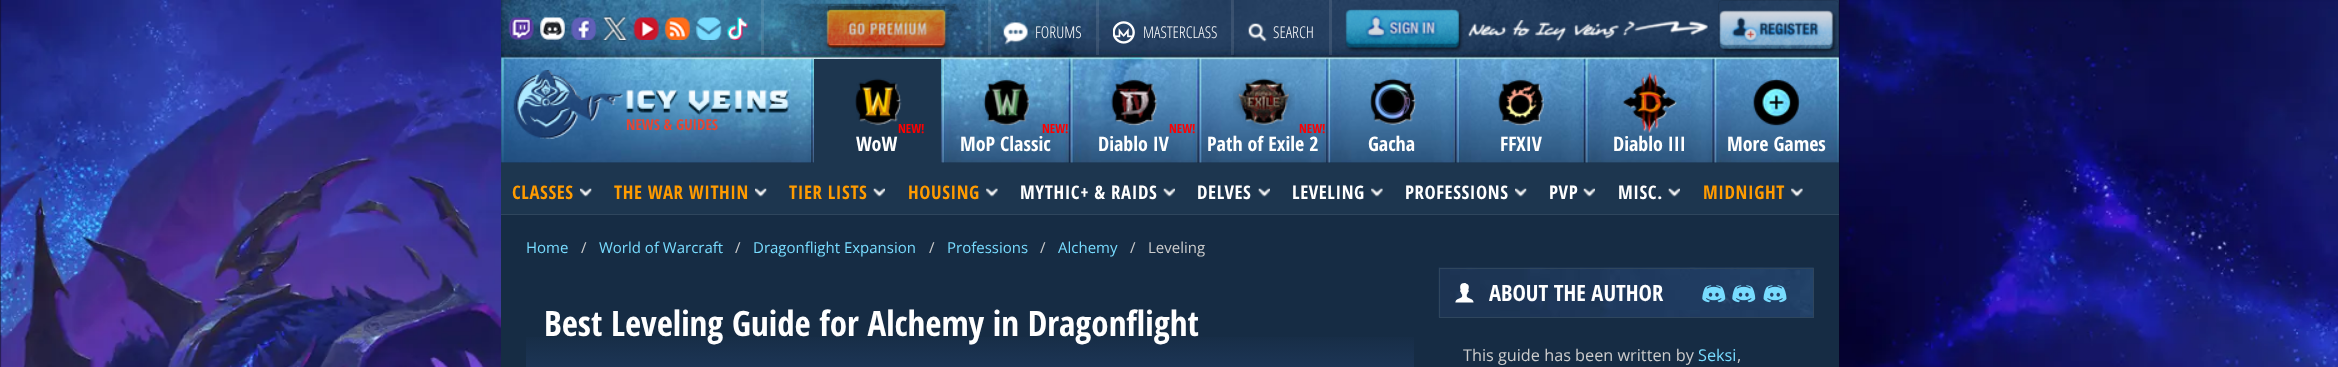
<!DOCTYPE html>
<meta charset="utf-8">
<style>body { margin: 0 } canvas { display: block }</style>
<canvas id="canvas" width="2338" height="367"></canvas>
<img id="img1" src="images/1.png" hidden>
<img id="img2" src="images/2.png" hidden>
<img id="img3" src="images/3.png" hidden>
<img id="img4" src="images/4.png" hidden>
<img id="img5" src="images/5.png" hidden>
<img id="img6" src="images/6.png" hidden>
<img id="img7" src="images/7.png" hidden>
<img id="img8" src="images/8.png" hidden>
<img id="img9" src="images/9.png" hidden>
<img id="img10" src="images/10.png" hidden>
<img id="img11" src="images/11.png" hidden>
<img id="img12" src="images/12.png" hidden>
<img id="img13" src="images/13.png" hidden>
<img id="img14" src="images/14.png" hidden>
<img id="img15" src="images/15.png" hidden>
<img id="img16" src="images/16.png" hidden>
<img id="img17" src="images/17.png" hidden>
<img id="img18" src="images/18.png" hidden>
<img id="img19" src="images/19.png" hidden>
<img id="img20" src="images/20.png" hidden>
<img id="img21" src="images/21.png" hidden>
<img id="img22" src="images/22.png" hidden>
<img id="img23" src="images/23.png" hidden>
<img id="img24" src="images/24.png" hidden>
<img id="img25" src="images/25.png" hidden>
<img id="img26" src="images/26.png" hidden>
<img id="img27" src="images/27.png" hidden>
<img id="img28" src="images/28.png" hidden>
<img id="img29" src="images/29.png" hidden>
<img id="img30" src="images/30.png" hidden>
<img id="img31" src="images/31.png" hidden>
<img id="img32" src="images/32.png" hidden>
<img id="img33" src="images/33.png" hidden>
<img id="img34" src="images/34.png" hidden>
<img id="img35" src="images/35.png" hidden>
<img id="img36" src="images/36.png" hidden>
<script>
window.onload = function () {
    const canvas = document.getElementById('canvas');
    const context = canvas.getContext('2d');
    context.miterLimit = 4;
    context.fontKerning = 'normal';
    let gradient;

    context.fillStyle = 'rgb(255, 255, 255)';
    context.fillRect(0, 0, 2338, 367);
    context.drawImage(document.getElementById('img1'), 0, 0, 2338, 367);
    context.fillStyle = 'rgb(22, 44, 68)';
    context.fillRect(501, 0, 1338, 163);
    context.drawImage(document.getElementById('img2'), 501, 0, 1338, 163);
    context.drawImage(document.getElementById('img3'), 508, 17, 26, 23);
    context.drawImage(document.getElementById('img4'), 540, 17, 25, 23);
    context.drawImage(document.getElementById('img5'), 571, 17, 26, 23);
    context.drawImage(document.getElementById('img6'), 602, 15, 26, 27);
    context.drawImage(document.getElementById('img7'), 633, 17, 26, 23);
    context.drawImage(document.getElementById('img8'), 665, 17, 25, 23);
    context.drawImage(document.getElementById('img9'), 696, 17, 26, 23);
    context.drawImage(document.getElementById('img10'), 727, 17, 21, 23);
    context.fillStyle = 'rgba(255, 255, 255, 0.1)';
    context.fillRect(761, 0, 3, 55);
    context.drawImage(document.getElementById('img11'), 778, 3, 203, 53);
    context.fillStyle = 'rgba(0, 0, 0, 0.2)';
    context.fillRect(828, 6, 117, 38);
    context.fillStyle = 'rgba(255, 255, 255, 0.1)';
    context.fillRect(988, 0, 3, 55);
    context.drawImage(document.getElementById('img12'), 1003, 22, 25, 23);
    context.fillRect(1096, 0, 3, 55);
    context.drawImage(document.getElementById('img13'), 1113, 21, 22, 23);
    context.fillRect(1231, 0, 3, 55);
    context.drawImage(document.getElementById('img14'), 1248, 23, 19, 19);
    context.fillRect(1329, 0, 3, 55);
    context.drawImage(document.getElementById('img15'), 1345, 9, 119, 43);
    context.drawImage(document.getElementById('img16'), 1468, 20, 240, 22);
    context.beginPath();
    context.roundRect(1718.5, 0.5, 120, 48, 3.5);
    context.strokeStyle = 'rgba(0, 0, 0, 0.1)';
    context.stroke();
    context.drawImage(document.getElementById('img17'), 1718, 10, 119, 44);
    context.drawImage(document.getElementById('img18'), 513, 70, 276, 69);
    context.fillStyle = 'rgb(29, 54, 79)';
    context.fillRect(814, 59, 127, 104);
    context.drawImage(document.getElementById('img19'), 855, 78, 47, 48);
    context.drawImage(document.getElementById('img20'), 983, 79, 47, 47);
    context.drawImage(document.getElementById('img21'), 1111, 79, 47, 47);
    context.drawImage(document.getElementById('img22'), 1233, 78, 62, 51);
    context.drawImage(document.getElementById('img23'), 1370, 78, 47, 48);
    context.drawImage(document.getElementById('img24'), 1498, 79, 46, 47);
    context.drawImage(document.getElementById('img25'), 1622, 72, 55, 62);
    context.drawImage(document.getElementById('img26'), 1753, 79, 47, 47);
    context.fillRect(501, 163, 1338, 51);
    context.fillStyle = 'rgb(47, 70, 93)';
    context.fillRect(501, 214, 1338, 1);
    context.drawImage(document.getElementById('img27'), 580, 188, 12, 9);
    context.drawImage(document.getElementById('img27'), 755, 188, 12, 9);
    context.drawImage(document.getElementById('img28'), 873, 188, 12, 9);
    context.drawImage(document.getElementById('img29'), 986, 188, 12, 9);
    context.drawImage(document.getElementById('img28'), 1163, 188, 12, 9);
    context.drawImage(document.getElementById('img30'), 1258, 188, 12, 9);
    context.drawImage(document.getElementById('img29'), 1371, 188, 12, 9);
    context.drawImage(document.getElementById('img31'), 1515, 188, 12, 9);
    context.drawImage(document.getElementById('img30'), 1583, 188, 12, 9);
    context.drawImage(document.getElementById('img28'), 1668, 188, 12, 9);
    context.drawImage(document.getElementById('img29'), 1791, 188, 12, 9);
    context.fillStyle = 'rgb(22, 44, 68)';
    context.fillRect(501, 215, 1338, 152);
    gradient = context.createLinearGradient(970, 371, 970, 305);
    gradient.addColorStop(0, 'rgb(29, 54, 87)');
    gradient.addColorStop(0.6, 'rgb(22, 44, 68)');
    gradient.addColorStop(1, 'rgb(22, 44, 68)');
    context.fillStyle = gradient;
    context.fillRect(526, 337, 888, 30);
    context.drawImage(document.getElementById('img32'), 1438, 267, 376, 51);
    context.strokeStyle = 'rgb(47, 70, 93)';
    context.strokeRect(1439.5, 268.5, 374, 49);
    context.drawImage(document.getElementById('img33'), 1455, 283, 19, 20);
    context.drawImage(document.getElementById('img34'), 1702, 285, 24, 18);
    context.drawImage(document.getElementById('img35'), 1732, 285, 24, 18);
    context.drawImage(document.getElementById('img36'), 1763, 285, 24, 18);
    context.font = '300 16.25px Open Sans Condensed';
    context.fillStyle = 'rgb(255, 255, 255)';
    context.fillText('FORUMS', 1035, 38);
    context.fillText('MASTERCLASS', 1143, 38);
    context.fillText('SEARCH', 1273, 38);
    context.font = 'bold 15px Open Sans Condensed';
    context.fillStyle = 'rgb(230, 70, 50)';
    context.fillText('NEWS & GUIDES', 626, 130);
    context.font = 'bold 12.5px Open Sans Condensed';
    context.fillStyle = 'rgb(255, 0, 0)';
    context.fillText('NEW!', 898, 133);
    context.font = 'bold 20px Open Sans Condensed';
    context.fillStyle = 'rgb(255, 255, 255)';
    context.fillText('WoW', 856, 151);
    context.font = 'bold 12.5px Open Sans Condensed';
    context.fillStyle = 'rgb(255, 0, 0)';
    context.fillText('NEW!', 1042, 133);
    context.font = 'bold 20px Open Sans Condensed';
    context.fillStyle = 'rgb(255, 255, 255)';
    context.fillText('MoP Classic', 960, 151);
    context.font = 'bold 12.5px Open Sans Condensed';
    context.fillStyle = 'rgb(255, 0, 0)';
    context.fillText('NEW!', 1169, 133);
    context.font = 'bold 20px Open Sans Condensed';
    context.fillStyle = 'rgb(255, 255, 255)';
    context.fillText('Diablo IV', 1098, 151);
    context.font = 'bold 12.5px Open Sans Condensed';
    context.fillStyle = 'rgb(255, 0, 0)';
    context.fillText('NEW!', 1299, 133);
    context.font = 'bold 20px Open Sans Condensed';
    context.fillStyle = 'rgb(255, 255, 255)';
    context.fillText('Path of Exile 2', 1207, 151);
    context.fillText('Gacha', 1368, 151);
    context.fillText('FFXIV', 1500, 151);
    context.fillText('Diablo III', 1613, 151);
    context.fillText('More Games', 1727, 151);
    context.letterSpacing = '0.6px';
    context.font = 'bold 18.75px Open Sans Condensed';
    context.fillStyle = 'rgb(255, 155, 0)';
    context.fillText('CLASSES', 512, 199);
    context.fillText('THE WAR WITHIN', 614, 199);
    context.fillText('TIER LISTS', 789, 199);
    context.fillText('HOUSING', 908, 199);
    context.fillStyle = 'rgb(255, 255, 255)';
    context.fillText('MYTHIC+ & RAIDS', 1020, 199);
    context.fillText('DELVES', 1197, 199);
    context.fillText('LEVELING', 1292, 199);
    context.fillText('PROFESSIONS', 1405, 199);
    context.fillText('PVP', 1549, 199);
    context.fillText('MISC.', 1618, 199);
    context.fillStyle = 'rgb(255, 155, 0)';
    context.fillText('MIDNIGHT', 1703, 199);
    context.letterSpacing = '0px';
    context.font = '15px Open Sans';
    context.fillStyle = 'rgb(120, 220, 255)';
    context.fillText('Home', 526, 253);
    context.fillStyle = 'rgb(204, 204, 204)';
    context.fillText('/', 581, 253);
    context.fillStyle = 'rgb(120, 220, 255)';
    context.fillText('World of Warcraft', 599, 253);
    context.fillStyle = 'rgb(204, 204, 204)';
    context.fillText('/', 735, 253);
    context.fillStyle = 'rgb(120, 220, 255)';
    context.fillText('Dragonflight Expansion', 753, 253);
    context.fillStyle = 'rgb(204, 204, 204)';
    context.fillText('/', 929, 253);
    context.fillStyle = 'rgb(120, 220, 255)';
    context.fillText('Professions', 947, 253);
    context.fillStyle = 'rgb(204, 204, 204)';
    context.fillText('/', 1040, 253);
    context.fillStyle = 'rgb(120, 220, 255)';
    context.fillText('Alchemy', 1058, 253);
    context.fillStyle = 'rgb(204, 204, 204)';
    context.fillText('/', 1130, 253);
    context.fillText('Leveling', 1148, 253);
    context.font = 'bold 35px Open Sans Condensed';
    context.fillStyle = 'rgb(255, 255, 255)';
    context.fillText('Best Leveling Guide for Alchemy in Dragonflight', 544, 336);
    context.font = 'bold 22.5px Open Sans Condensed';
    context.fillText('ABOUT THE AUTHOR', 1489, 301);
    context.font = '16.25px Open Sans';
    context.fillStyle = 'rgb(204, 204, 204)';
    context.fillText('This guide has been written by', 1463, 361);
    context.fillStyle = 'rgb(120, 220, 255)';
    context.fillText('Seksi', 1698, 361);
    context.fillStyle = 'rgb(204, 204, 204)';
    context.fillText(',', 1737, 361);
};
</script>
